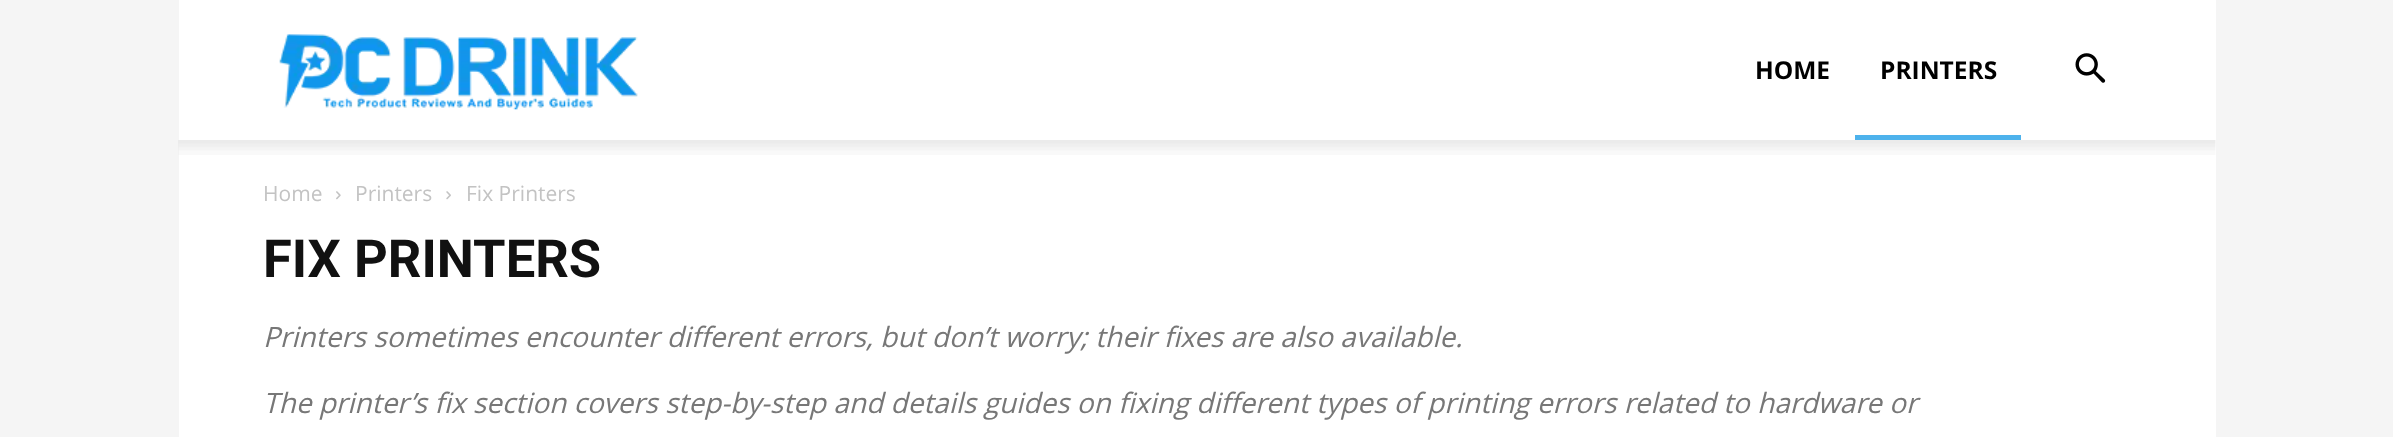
<!DOCTYPE html>
<meta charset="utf-8">
<style>body { margin: 0 } canvas { display: block }</style>
<canvas id="canvas" width="2393" height="437"></canvas>
<img id="img1" src="images/1.png" hidden>
<img id="img2" src="images/2.png" hidden>
<img id="img3" src="images/3.png" hidden>
<img id="img4" src="images/4.png" hidden>
<img id="img5" src="images/5.png" hidden>
<script>
window.onload = function () {
    const canvas = document.getElementById('canvas');
    const context = canvas.getContext('2d');
    context.miterLimit = 4;
    context.fontKerning = 'normal';

    context.fillStyle = 'rgb(245, 245, 245)';
    context.fillRect(0, 0, 2393, 437);
    context.fillStyle = 'rgb(255, 255, 255)';
    context.fillRect(179, 0, 2037, 437);
    context.drawImage(document.getElementById('img1'), 279, 34, 359, 76);
    context.fillStyle = 'rgb(77, 178, 236)';
    context.fillRect(1855, 135, 166, 5);
    context.drawImage(document.getElementById('img2'), 2075, 53, 31, 30);
    context.drawImage(document.getElementById('img3'), 178, 140, 2038, 15);
    context.drawImage(document.getElementById('img4'), 336, 191, 5, 9);
    context.drawImage(document.getElementById('img5'), 446, 191, 5, 9);
    context.font = 'bold 24.5px Open Sans';
    context.fillStyle = 'rgb(0, 0, 0)';
    context.fillText('HOME', 1755, 79);
    context.fillText('PRINTERS', 1880, 79);
    context.font = '21px Open Sans';
    context.fillStyle = 'rgb(195, 195, 195)';
    context.fillText('Home', 263, 201);
    context.fillText('Printers', 355, 201);
    context.fillText('Fix Printers', 466, 201);
    context.font = 'bold 52.5px Roboto';
    context.fillStyle = 'rgb(17, 17, 17)';
    context.fillText('FIX PRINTERS', 263, 277);
    context.font = 'italic 28px Open Sans';
    context.fillStyle = 'rgb(119, 119, 119)';
    context.fillText('Printers sometimes encounter different errors, but don’t worry; their fixes are also available.', 263, 347);
    context.fillText('The printer’s fix section covers step-by-step and details guides on fixing different types of printing errors related to hardware or', 263, 413);
};
</script>
